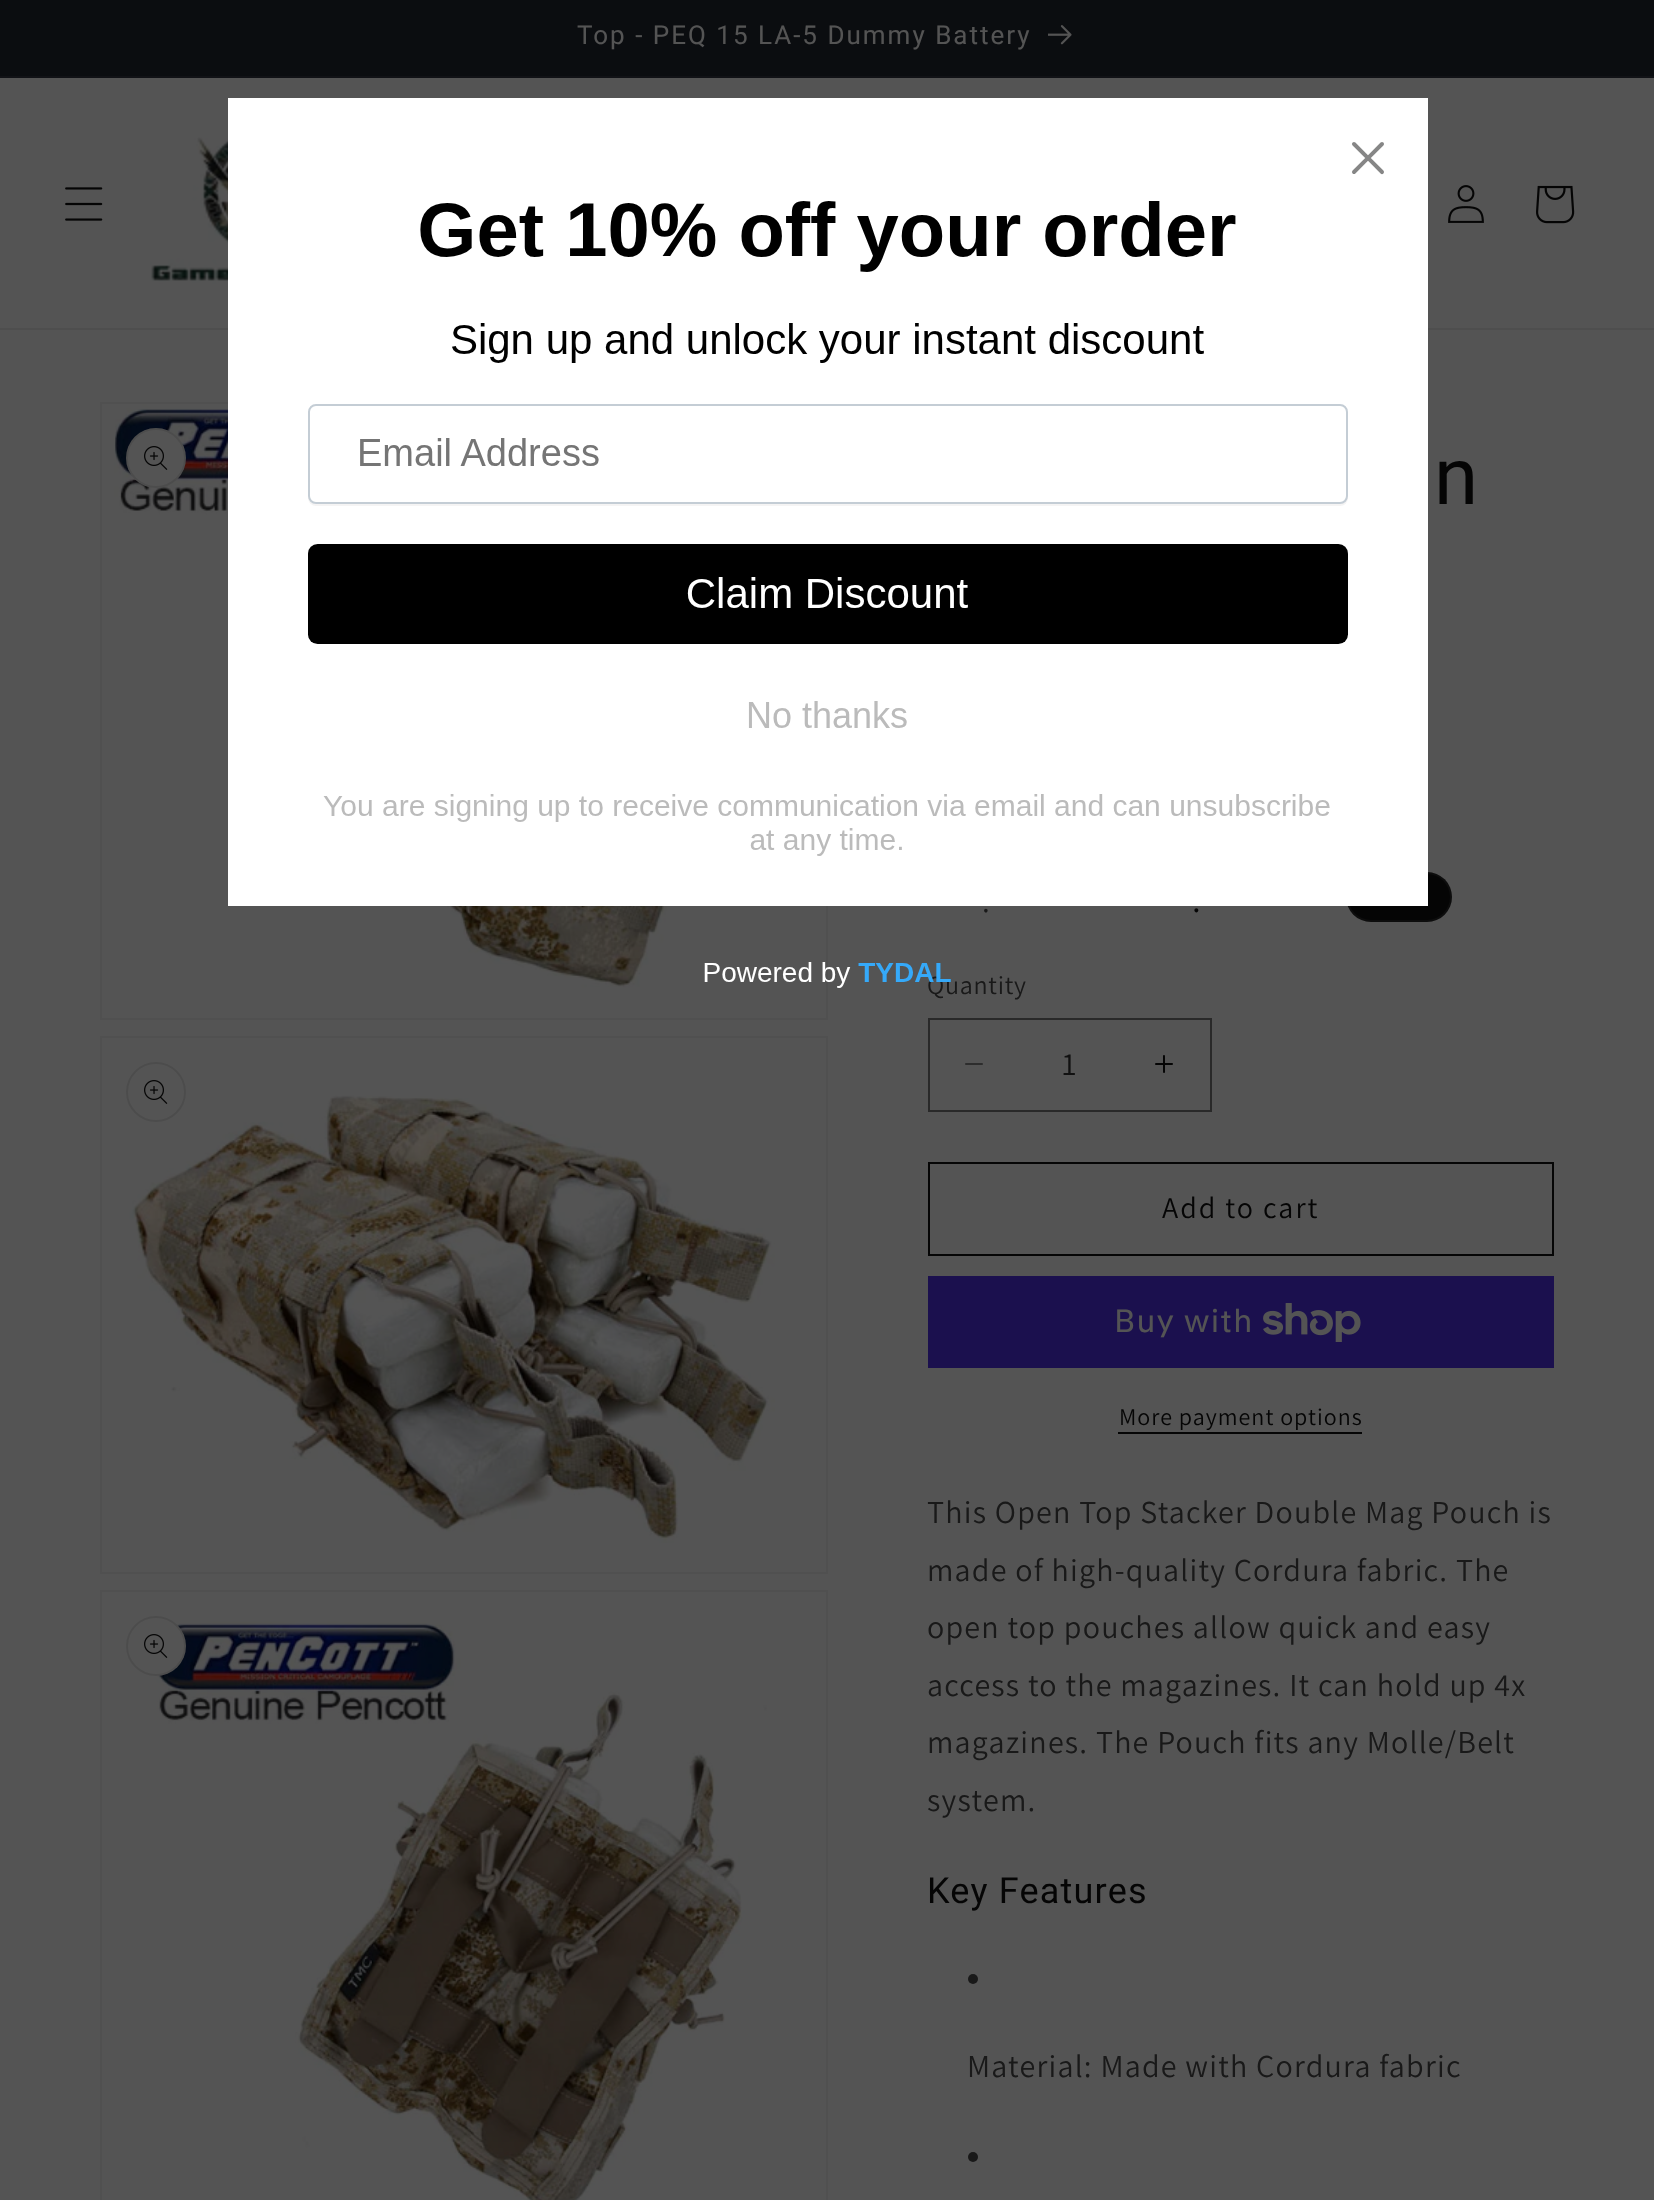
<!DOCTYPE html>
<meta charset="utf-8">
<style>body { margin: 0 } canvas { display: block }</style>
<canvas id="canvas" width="1654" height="2200"></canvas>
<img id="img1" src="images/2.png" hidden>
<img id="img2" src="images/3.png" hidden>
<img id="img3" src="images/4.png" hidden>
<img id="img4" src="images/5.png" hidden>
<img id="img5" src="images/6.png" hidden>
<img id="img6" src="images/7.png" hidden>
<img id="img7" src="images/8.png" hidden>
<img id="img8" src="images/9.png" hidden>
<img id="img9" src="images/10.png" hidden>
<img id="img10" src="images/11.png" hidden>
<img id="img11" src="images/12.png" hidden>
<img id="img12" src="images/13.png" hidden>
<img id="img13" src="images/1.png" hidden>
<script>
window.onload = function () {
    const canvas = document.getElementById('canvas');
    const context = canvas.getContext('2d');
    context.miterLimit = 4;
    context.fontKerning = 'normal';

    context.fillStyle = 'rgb(255, 255, 255)';
    context.fillRect(0, 0, 1654, 2200);
    context.fillStyle = 'rgb(36, 40, 51)';
    context.fillRect(0, 0, 1654, 76);
    context.fillStyle = 'rgb(54, 57, 67)';
    context.fillRect(0, 76, 1654, 2);
    context.drawImage(document.getElementById('img1'), 1048, 25, 24, 20);
    context.fillStyle = 'rgb(236, 236, 236)';
    context.fillRect(0, 328, 1654, 2);
    context.drawImage(document.getElementById('img2'), 65, 187, 38, 34);
    context.drawImage(document.getElementById('img3'), 150, 127, 78, 157);
    context.drawImage(document.getElementById('img4'), 1448, 185, 36, 38);
    context.drawImage(document.getElementById('img5'), 1536, 185, 39, 39);
    context.strokeStyle = 'rgb(243, 243, 243)';
    context.lineWidth = 2;
    context.strokeRect(101, 403, 726, 616);
    context.drawImage(document.getElementById('img6'), 114, 404, 652, 584);
    context.fillStyle = 'rgb(255, 255, 255)';
    context.beginPath();
    context.arc(156, 458, 30, 0, 2 * Math.PI);
    context.fill();
    context.beginPath();
    context.arc(156, 458, 29, 0, 2 * Math.PI);
    context.strokeStyle = 'rgba(18, 18, 18, 0.1)';
    context.stroke();
    context.drawImage(document.getElementById('img7'), 144, 446, 24, 24);
    context.strokeStyle = 'rgb(243, 243, 243)';
    context.strokeRect(101, 1037, 726, 536);
    context.drawImage(document.getElementById('img8'), 129, 1095, 646, 448);
    context.beginPath();
    context.arc(156, 1092, 29, 0, 2 * Math.PI);
    context.strokeStyle = 'rgb(231, 231, 231)';
    context.stroke();
    context.drawImage(document.getElementById('img7'), 144, 1080, 24, 24);
    context.strokeStyle = 'rgb(243, 243, 243)';
    context.strokeRect(101, 1591, 726, 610);
    context.drawImage(document.getElementById('img9'), 151, 1621, 616, 579);
    context.beginPath();
    context.arc(156, 1646, 30, 0, 2 * Math.PI);
    context.fill();
    context.beginPath();
    context.arc(156, 1646, 29, 0, 2 * Math.PI);
    context.strokeStyle = 'rgba(18, 18, 18, 0.1)';
    context.stroke();
    context.drawImage(document.getElementById('img7'), 144, 1634, 24, 24);
    context.fillStyle = 'rgb(18, 18, 18)';
    context.beginPath();
    context.roundRect(1346, 872, 106, 50, 25);
    context.fill();
    context.beginPath();
    context.roundRect(1347, 873, 104, 48, 24);
    context.strokeStyle = 'rgba(255, 255, 255, 0.1)';
    context.stroke();
    context.drawImage(document.getElementById('img10'), 965, 1063, 18, 2);
    context.drawImage(document.getElementById('img11'), 1155, 1055, 18, 18);
    context.strokeStyle = 'rgb(125, 125, 125)';
    context.strokeRect(929, 1019, 282, 92);
    context.strokeStyle = 'rgb(18, 18, 18)';
    context.strokeRect(929, 1163, 624, 92);
    context.fillStyle = 'rgb(84, 51, 235)';
    context.fillRect(928, 1276, 626, 92);
    context.drawImage(document.getElementById('img12'), 1263, 1303, 98, 39);
    context.fillStyle = 'rgb(18, 18, 18)';
    context.fillRect(1118, 1432, 244, 2);
    context.fillStyle = 'rgb(77, 77, 77)';
    context.beginPath();
    context.arc(973, 1979, 5, 0, 2 * Math.PI);
    context.fill();
    context.beginPath();
    context.arc(973, 2157, 5, 0, 2 * Math.PI);
    context.fill();
    context.letterSpacing = '2px';
    context.font = '26px Roboto';
    context.fillStyle = 'rgb(255, 255, 255)';
    context.fillText('Top - PEQ 15 LA-5 Dummy Battery', 577, 44);
    context.letterSpacing = '1.2px';
    context.font = '80px Roboto';
    context.fillStyle = 'rgb(18, 18, 18)';
    context.fillText('n', 1434, 504);
    context.letterSpacing = '3px';
    context.font = '32px Assistant';
    context.fillStyle = 'rgb(77, 77, 77)';
    context.fillText('.', 982, 912);
    context.font = '36px Assistant';
    context.fillStyle = 'rgb(18, 18, 18)';
    context.fillText('.', 1192, 912);
    context.letterSpacing = '0.75px';
    context.font = '26px Assistant';
    context.fillStyle = 'rgb(77, 77, 77)';
    context.fillText('Quantity', 927, 994);
    context.letterSpacing = '0px';
    context.font = '32px Assistant';
    context.fillStyle = 'rgb(54, 54, 54)';
    context.fillText('1', 1062, 1075);
    context.letterSpacing = '2px';
    context.font = '30px Assistant';
    context.fillStyle = 'rgb(18, 18, 18)';
    context.fillText('Add to cart', 1162, 1218);
    context.letterSpacing = '1.2px';
    context.font = '32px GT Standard';
    context.fillStyle = 'rgb(255, 255, 255)';
    context.fillText('Buy with', 1114, 1332);
    context.letterSpacing = '1px';
    context.font = '24px Assistant';
    context.fillStyle = 'rgb(18, 18, 18)';
    context.fillText('More payment options', 1119, 1425);
    context.letterSpacing = '1.2px';
    context.font = '32px Assistant';
    context.fillStyle = 'rgb(77, 77, 77)';
    context.fillText('This Open Top Stacker Double Mag Pouch is', 927, 1523);
    context.fillText('made of high-quality Cordura fabric. The', 927, 1581);
    context.fillText('open top pouches allow quick and easy', 927, 1638);
    context.fillText('access to the magazines. It can hold up 4x', 927, 1696);
    context.fillText('magazines. The Pouch fits any Molle/Belt', 927, 1753);
    context.fillText('system.', 927, 1811);
    context.font = '36px Roboto';
    context.fillStyle = 'rgb(18, 18, 18)';
    context.fillText('Key Features', 927, 1903);
    context.font = '32px Assistant';
    context.fillStyle = 'rgb(77, 77, 77)';
    context.fillText('Material: Made with Cordura fabric', 967, 2077);
    context.drawImage(document.getElementById('img13'), 0, 0, 1654, 2200);
};
</script>
